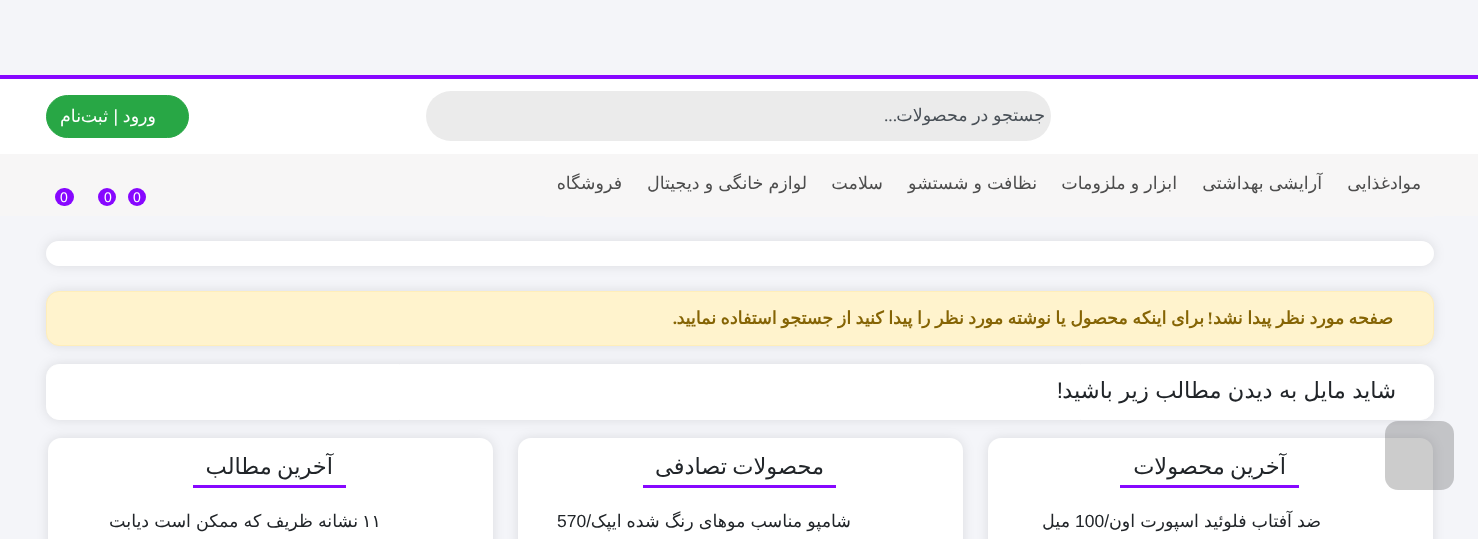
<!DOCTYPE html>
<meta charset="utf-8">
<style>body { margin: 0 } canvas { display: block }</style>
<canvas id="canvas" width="1478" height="539"></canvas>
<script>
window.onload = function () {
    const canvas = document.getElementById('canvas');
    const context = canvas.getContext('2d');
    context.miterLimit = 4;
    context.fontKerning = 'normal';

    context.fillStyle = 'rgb(244, 245, 249)';
    context.fillRect(0, 0, 1478, 539);
    context.fillStyle = 'rgb(255, 255, 255)';
    context.fillRect(0, 79, 1478, 75);
    context.fillStyle = 'rgb(135, 7, 255)';
    context.fillRect(0, 75, 1478, 4);
    context.fillStyle = 'rgb(235, 235, 235)';
    context.beginPath();
    context.roundRect(465, 91, 586, 50, [0, 25, 25, 0]);
    context.fill();
    context.beginPath();
    context.roundRect(426, 91, 39, 50, [25, 0, 0, 25]);
    context.fill();
    context.fillStyle = 'rgb(40, 167, 69)';
    context.beginPath();
    context.roundRect(46.5, 95.5, 142, 42, 21);
    context.fill();
    context.strokeStyle = 'rgb(40, 167, 69)';
    context.stroke();
    context.fillStyle = 'rgb(247, 246, 246)';
    context.fillRect(0, 154, 1478, 62);
    context.fillRect(545, 216, 889, 1);
    context.fillStyle = 'rgb(135, 7, 255)';
    context.beginPath();
    context.arc(137, 197, 9, 0, 2 * Math.PI);
    context.fill();
    context.beginPath();
    context.arc(107, 197, 9, 0, 2 * Math.PI);
    context.fill();
    context.beginPath();
    context.roundRect(55, 188, 19, 18, 9);
    context.fill();
    context.fillStyle = 'rgba(0, 0, 0, 0.1)';
    context.filter = 'blur(6px)';
    context.beginPath();
    context.roundRect(46, 291, 1388, 55, 13);
    context.fill();
    context.filter = 'none';
    context.fillStyle = 'rgb(255, 243, 205)';
    context.beginPath();
    context.roundRect(46.5, 291.5, 1387, 54, 12.5);
    context.fill();
    context.strokeStyle = 'rgb(255, 238, 186)';
    context.stroke();
    context.fillStyle = 'rgba(0, 0, 0, 0.1)';
    context.filter = 'blur(6px)';
    context.beginPath();
    context.roundRect(46, 364, 1388, 56, 13);
    context.fill();
    context.filter = 'none';
    context.fillStyle = 'rgb(255, 255, 255)';
    context.beginPath();
    context.roundRect(46.5, 364.5, 1387, 55, 12.5);
    context.fill();
    context.strokeStyle = 'rgb(255, 255, 255)';
    context.stroke();
    context.fillStyle = 'rgba(0, 0, 0, 0.1)';
    context.filter = 'blur(6px)';
    context.beginPath();
    context.roundRect(988, 438, 445, 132, 13);
    context.fill();
    context.filter = 'none';
    context.fillStyle = 'rgb(255, 255, 255)';
    context.beginPath();
    context.roundRect(988, 438, 445, 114, 13);
    context.fill();
    context.fillStyle = 'rgba(0, 0, 0, 0.2)';
    context.beginPath();
    context.roundRect(1385, 421, 69, 69, 13);
    context.fill();
    context.fillStyle = 'rgba(0, 0, 0, 0.1)';
    context.filter = 'blur(6px)';
    context.beginPath();
    context.roundRect(46, 241, 1388, 25, 12.5);
    context.fill();
    context.filter = 'none';
    context.fillStyle = 'rgb(255, 255, 255)';
    context.beginPath();
    context.roundRect(46, 241, 1388, 25, 12.5);
    context.fill();
    context.fillStyle = 'rgb(135, 7, 255)';
    context.fillRect(1120, 485, 179, 3);
    context.fillStyle = 'rgba(0, 0, 0, 0.1)';
    context.filter = 'blur(6px)';
    context.beginPath();
    context.roundRect(518, 438, 445, 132, 13);
    context.fill();
    context.filter = 'none';
    context.fillStyle = 'rgb(255, 255, 255)';
    context.beginPath();
    context.roundRect(518, 438, 445, 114, 13);
    context.fill();
    context.fillStyle = 'rgb(135, 7, 255)';
    context.fillRect(643, 485, 193, 3);
    context.fillStyle = 'rgba(0, 0, 0, 0.1)';
    context.filter = 'blur(6px)';
    context.beginPath();
    context.roundRect(48, 438, 445, 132, 13);
    context.fill();
    context.filter = 'none';
    context.fillStyle = 'rgb(255, 255, 255)';
    context.beginPath();
    context.roundRect(48, 438, 445, 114, 13);
    context.fill();
    context.fillStyle = 'rgb(135, 7, 255)';
    context.fillRect(193, 485, 153, 3);
    context.wordSpacing = '-1px';
    context.direction = 'rtl';
    context.font = '17.5px DejaVu Sans';
    context.fillStyle = 'rgb(73, 80, 87)';
    context.fillText('جستجو در محصولات', 1045, 121);
    context.wordSpacing = '0px';
    context.font = '17.5px Liberation Serif';
    context.fillText('...', 897, 121);
    context.font = '17.5px DejaVu Sans';
    context.fillStyle = 'rgb(255, 255, 255)';
    context.fillText('ورود', 156, 122);
    context.font = '17.5px Liberation Sans';
    context.fillText('|', 118, 122);
    context.font = '17.5px DejaVu Sans';
    context.fillText('ثبت', 108, 122);
    context.fillText('نام', 81, 122);
    context.fillStyle = 'rgb(77, 77, 77)';
    context.fillText('موادغذایی', 1421, 189);
    context.wordSpacing = '-0.5px';
    context.fillText('آرایشی بهداشتی', 1322, 189);
    context.fillText('ابزار و ملزومات', 1177, 189);
    context.fillText('نظافت و شستشو', 1037, 189);
    context.wordSpacing = '0px';
    context.fillText('سلامت', 883, 189);
    context.wordSpacing = '-0.5px';
    context.fillText('لوازم خانگی و دیجیتال', 807, 189);
    context.wordSpacing = '0px';
    context.fillText('فروشگاه', 622, 189);
    context.direction = 'ltr';
    context.font = '14px Liberation Sans';
    context.fillStyle = 'rgb(255, 255, 255)';
    context.fillText('0', 133, 202);
    context.fillText('0', 104, 202);
    context.fillText('0', 60, 202);
    context.wordSpacing = '-1px';
    context.direction = 'rtl';
    context.font = 'bold 17.5px DejaVu Sans';
    context.fillStyle = 'rgb(133, 100, 4)';
    context.fillText('صفحه مورد نظر پیدا نشد', 1393, 324);
    context.wordSpacing = '0px';
    context.font = 'bold 17.5px Liberation Serif';
    context.fillText('!', 1213, 324);
    context.wordSpacing = '-1px';
    context.font = 'bold 17.5px DejaVu Sans';
    context.fillText('برای اینکه محصول یا نوشته مورد نظر را پیدا کنید از جستجو استفاده نمایید', 1204, 324);
    context.wordSpacing = '0px';
    context.font = 'bold 17.5px Liberation Serif';
    context.fillText('.', 677, 324);
    context.wordSpacing = '-0.75px';
    context.font = '22.5px DejaVu Sans';
    context.fillStyle = 'rgb(33, 37, 41)';
    context.fillText('شاید مایل به دیدن مطالب زیر باشید', 1396, 398);
    context.wordSpacing = '0px';
    context.font = '22.5px Liberation Sans';
    context.fillText('!', 1063, 398);
    context.wordSpacing = '-2px';
    context.font = '22.5px DejaVu Sans';
    context.fillText('آخرین محصولات', 1286, 474);
    context.wordSpacing = '-0.5px';
    context.font = '17.5px DejaVu Sans';
    context.fillText('ضد آفتاب فلوئید اسپورت اون', 1321, 527);
    context.wordSpacing = '0px';
    context.font = '17.5px Liberation Sans';
    context.fillText('/', 1109, 527);
    context.direction = 'ltr';
    context.fillText('100', 1075, 527);
    context.direction = 'rtl';
    context.font = '17.5px DejaVu Sans';
    context.fillText('میل', 1070, 527);
    context.wordSpacing = '-2px';
    context.font = '22.5px DejaVu Sans';
    context.fillText('محصولات تصادفی', 824, 474);
    context.wordSpacing = '-0.5px';
    context.font = '17.5px DejaVu Sans';
    context.fillText('شامپو مناسب موهای رنگ شده ایپک', 851, 527);
    context.wordSpacing = '0px';
    context.font = '17.5px Liberation Sans';
    context.fillText('/', 591, 527);
    context.direction = 'ltr';
    context.fillText('570', 557, 527);
    context.wordSpacing = '-2px';
    context.direction = 'rtl';
    context.font = '22.5px DejaVu Sans';
    context.fillText('آخرین مطالب', 333, 474);
    context.wordSpacing = '0px';
    context.direction = 'ltr';
    context.font = '17.5px DejaVu Sans';
    context.fillText('۱۱', 362, 527);
    context.wordSpacing = '-0.5px';
    context.direction = 'rtl';
    context.fillText('نشانه ظریف که ممکن است دیابت', 358, 527);
};
</script>
